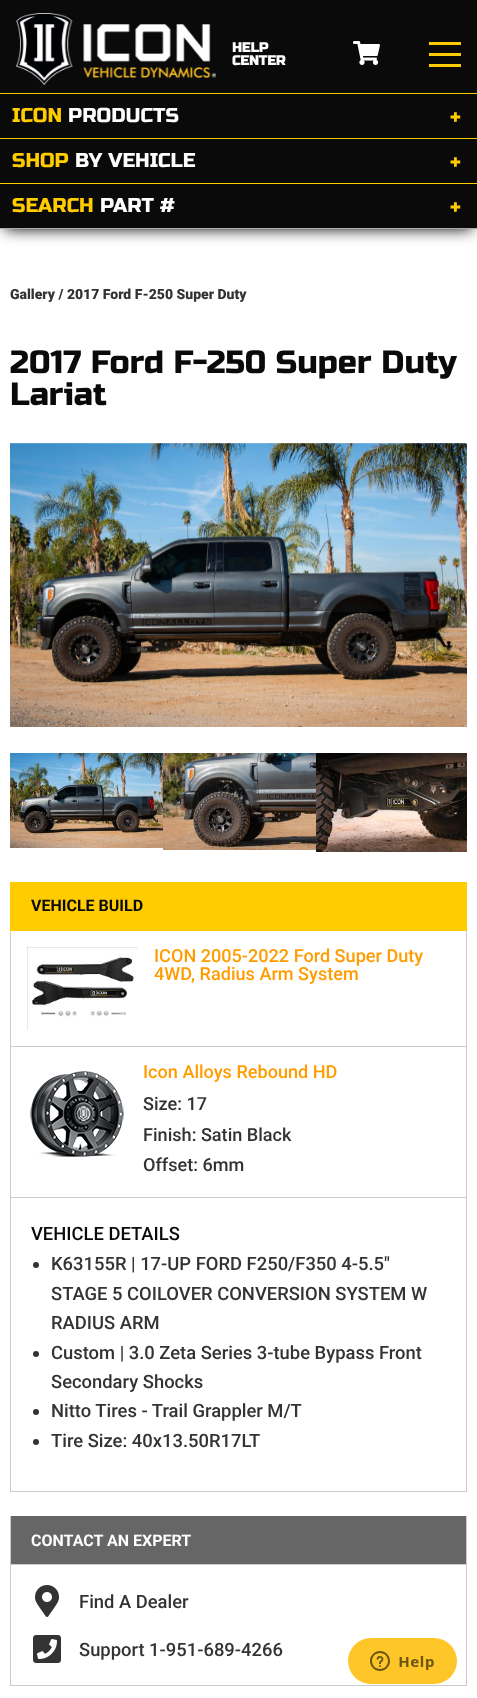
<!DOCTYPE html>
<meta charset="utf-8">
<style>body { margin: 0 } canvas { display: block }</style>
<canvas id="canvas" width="477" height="1698"></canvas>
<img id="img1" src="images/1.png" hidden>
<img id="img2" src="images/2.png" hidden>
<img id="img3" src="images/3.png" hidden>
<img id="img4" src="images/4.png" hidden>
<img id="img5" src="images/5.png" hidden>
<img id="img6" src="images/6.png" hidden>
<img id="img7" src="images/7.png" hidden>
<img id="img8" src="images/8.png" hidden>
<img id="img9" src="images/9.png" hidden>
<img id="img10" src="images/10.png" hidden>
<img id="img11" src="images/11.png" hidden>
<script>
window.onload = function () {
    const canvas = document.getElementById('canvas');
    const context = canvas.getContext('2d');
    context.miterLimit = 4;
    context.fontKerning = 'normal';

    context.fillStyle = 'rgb(255, 255, 255)';
    context.fillRect(0, 0, 477, 1698);
    context.fillStyle = 'rgb(0, 0, 0)';
    context.filter = 'blur(7.5px)';
    context.beginPath();
    context.rect(5, 10, 467, 219);
    context.fill();
    context.filter = 'none';
    context.fillStyle = 'rgb(10, 10, 10)';
    context.fillRect(0, 0, 477, 93);
    context.fillStyle = 'rgb(255, 204, 0)';
    context.fillRect(0, 93, 477, 1);
    context.drawImage(document.getElementById('img1'), 16, 13, 200, 72);
    context.drawImage(document.getElementById('img2'), 353, 41, 27, 24);
    context.fillRect(429, 64, 32, 3);
    context.fillRect(429, 53, 32, 3);
    context.fillRect(429, 42, 32, 3);
    context.fillStyle = 'rgb(10, 10, 10)';
    context.fillRect(0, 94, 477, 44);
    context.fillStyle = 'rgb(255, 204, 0)';
    context.fillRect(0, 138, 477, 1);
    context.fillStyle = 'rgb(10, 10, 10)';
    context.fillRect(0, 139, 477, 44);
    context.fillStyle = 'rgb(255, 204, 0)';
    context.fillRect(0, 183, 477, 1);
    context.fillStyle = 'rgb(10, 10, 10)';
    context.fillRect(0, 184, 477, 44);
    context.fillStyle = 'rgb(170, 170, 170)';
    context.fillRect(0, 228, 477, 1);
    context.drawImage(document.getElementById('img3'), 10, 443, 457, 284);
    context.drawImage(document.getElementById('img4'), 10, 753, 153, 95);
    context.drawImage(document.getElementById('img5'), 163, 753, 153, 97);
    context.drawImage(document.getElementById('img6'), 316, 753, 151, 99);
    context.fillStyle = 'rgb(255, 204, 0)';
    context.fillRect(10, 882, 457, 49);
    context.fillStyle = 'rgb(204, 204, 204)';
    context.fillRect(466, 931, 1, 561);
    context.fillRect(10, 1046, 457, 1);
    context.fillRect(10, 931, 1, 116);
    context.drawImage(document.getElementById('img7'), 27, 947, 111, 83);
    context.fillRect(10, 1197, 457, 1);
    context.fillRect(10, 1047, 1, 151);
    context.drawImage(document.getElementById('img8'), 30, 1071, 94, 86);
    context.fillRect(10, 1491, 457, 1);
    context.fillRect(10, 1198, 1, 294);
    context.fillStyle = 'rgb(51, 51, 51)';
    context.beginPath();
    context.arc(36, 1265, 3, 0, 2 * Math.PI);
    context.fill();
    context.beginPath();
    context.arc(36, 1354, 3, 0, 2 * Math.PI);
    context.fill();
    context.beginPath();
    context.arc(36, 1412, 3, 0, 2 * Math.PI);
    context.fill();
    context.beginPath();
    context.arc(36, 1442, 3, 0, 2 * Math.PI);
    context.fill();
    context.fillStyle = 'rgb(102, 102, 102)';
    context.fillRect(11, 1516, 455, 48);
    context.fillStyle = 'rgb(204, 204, 204)';
    context.fillRect(466, 1516, 1, 170);
    context.fillRect(10, 1564, 457, 1);
    context.fillRect(10, 1516, 1, 49);
    context.fillRect(10, 1685, 457, 1);
    context.fillRect(10, 1565, 1, 121);
    context.drawImage(document.getElementById('img9'), 35, 1585, 24, 32);
    context.drawImage(document.getElementById('img10'), 33, 1635, 28, 28);
    context.drawImage(document.getElementById('img11'), 348, 1638, 109, 46);
    context.font = 'bold 13.5px Russo One';
    context.fillStyle = 'rgb(254, 254, 254)';
    context.fillText('HELP', 232, 52);
    context.fillText('CENTER', 232, 65);
    context.font = '20px Russo One';
    context.fillStyle = 'rgb(255, 204, 0)';
    context.fillText('ICON', 12, 122);
    context.fillStyle = 'rgb(254, 254, 254)';
    context.fillText('PRODUCTS', 68, 122);
    context.fillStyle = 'rgb(255, 204, 0)';
    context.fillText('+', 450, 124);
    context.fillText('SHOP', 12, 167);
    context.fillStyle = 'rgb(254, 254, 254)';
    context.fillText('BY VEHICLE', 75, 167);
    context.fillStyle = 'rgb(255, 204, 0)';
    context.fillText('+', 450, 169);
    context.fillText('SEARCH', 12, 212);
    context.fillStyle = 'rgb(254, 254, 254)';
    context.fillText('PART #', 100, 212);
    context.fillStyle = 'rgb(255, 204, 0)';
    context.fillText('+', 450, 214);
    context.font = '900 14px Roboto';
    context.fillStyle = 'rgb(51, 51, 51)';
    context.fillText('Gallery / 2017 Ford F-250 Super Duty', 10, 299);
    context.font = '32px Russo One';
    context.fillStyle = 'rgb(10, 10, 10)';
    context.fillText('2017 Ford F-250 Super Duty', 10, 373);
    context.fillText('Lariat', 10, 405);
    context.font = 'bold 16px Roboto';
    context.fillText('VEHICLE BUILD', 31, 911);
    context.font = '500 18.1px Roboto';
    context.fillStyle = 'rgb(255, 156, 0)';
    context.fillText('ICON 2005-2022 Ford Super Duty', 154, 962);
    context.fillText('4WD, Radius Arm System', 154, 980);
    context.fillText('Icon Alloys Rebound HD', 143, 1078);
    context.fillStyle = 'rgb(51, 51, 51)';
    context.fillText('Size: 17', 143, 1110);
    context.fillText('Finish: Satin Black', 143, 1141);
    context.fillText('Offset: 6mm', 143, 1171);
    context.font = '500 18.4px Roboto';
    context.fillStyle = 'rgb(10, 10, 10)';
    context.fillText('VEHICLE DETAILS', 31, 1240);
    context.fillStyle = 'rgb(51, 51, 51)';
    context.fillText('K63155R | 17-UP FORD F250/F350 4-5.5"', 51, 1270);
    context.fillText('STAGE 5 COILOVER CONVERSION SYSTEM W', 51, 1300);
    context.fillText('RADIUS ARM', 51, 1329);
    context.fillText('Custom | 3.0 Zeta Series 3-tube Bypass Front', 51, 1359);
    context.fillText('Secondary Shocks', 51, 1388);
    context.fillText('Nitto Tires - Trail Grappler M/T', 51, 1417);
    context.fillText('Tire Size: 40x13.50R17LT', 51, 1447);
    context.font = 'bold 16px Roboto';
    context.fillStyle = 'rgb(254, 254, 254)';
    context.fillText('CONTACT AN EXPERT', 31, 1546);
    context.font = '500 18.4px Roboto';
    context.fillStyle = 'rgb(51, 51, 51)';
    context.fillText('Find A Dealer', 79, 1608);
    context.fillText('Support 1-951-689-4266', 79, 1656);
};
</script>
